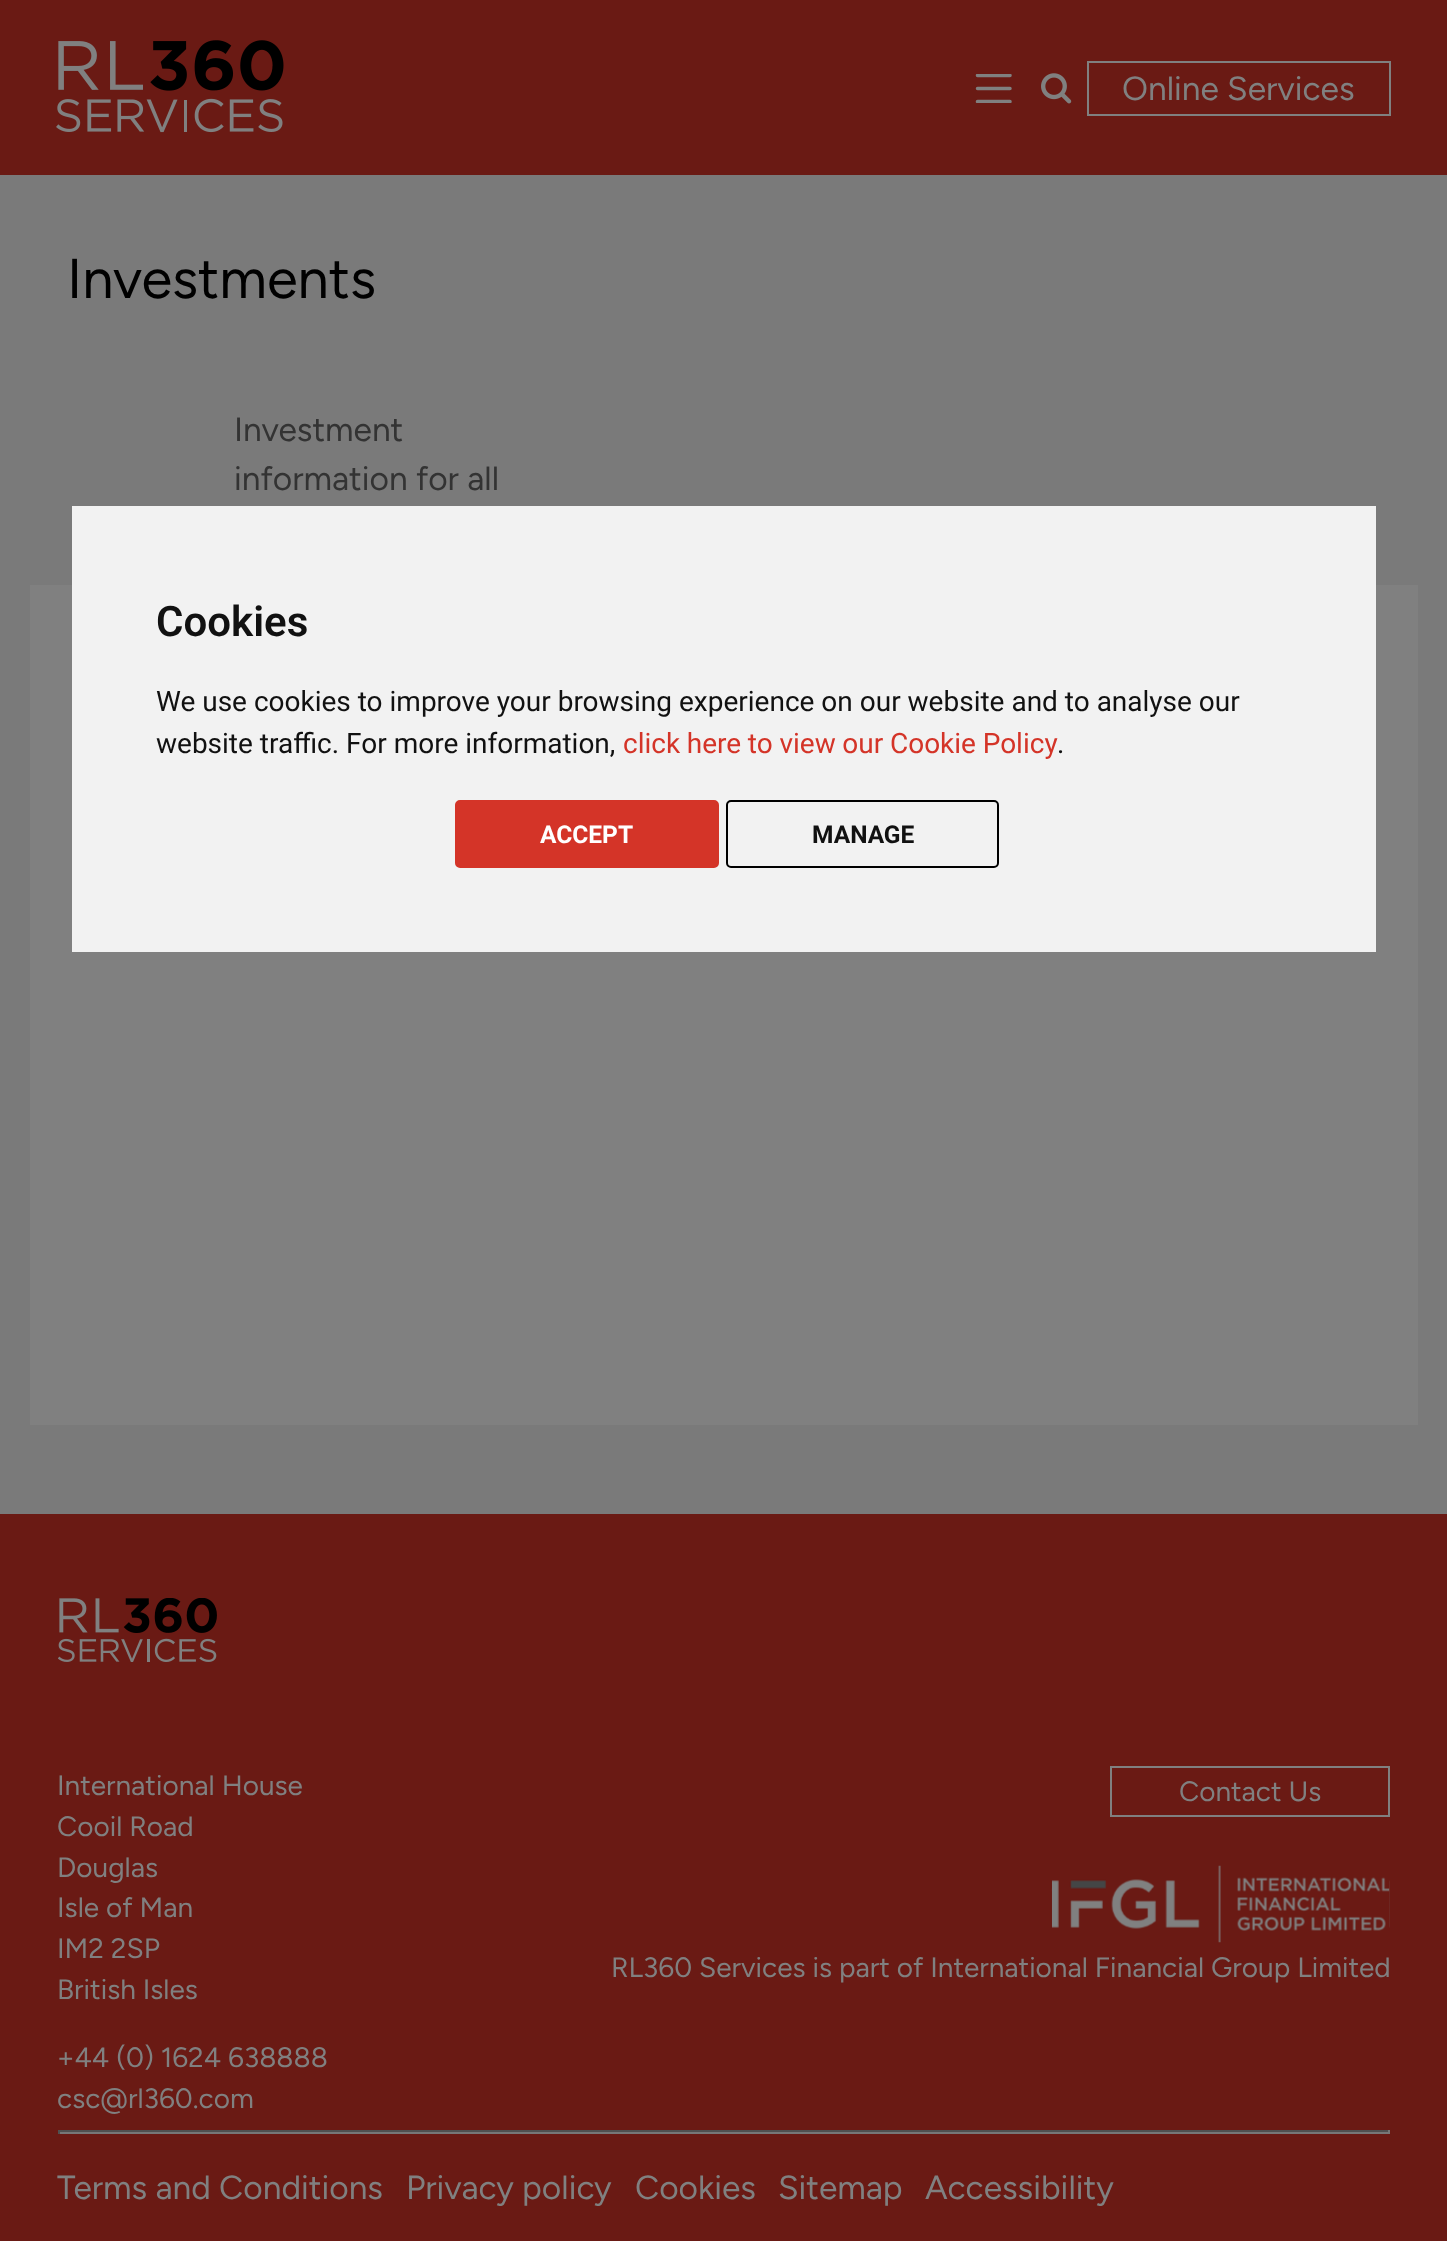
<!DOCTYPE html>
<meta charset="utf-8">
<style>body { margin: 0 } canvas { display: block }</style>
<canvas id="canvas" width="1447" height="2241"></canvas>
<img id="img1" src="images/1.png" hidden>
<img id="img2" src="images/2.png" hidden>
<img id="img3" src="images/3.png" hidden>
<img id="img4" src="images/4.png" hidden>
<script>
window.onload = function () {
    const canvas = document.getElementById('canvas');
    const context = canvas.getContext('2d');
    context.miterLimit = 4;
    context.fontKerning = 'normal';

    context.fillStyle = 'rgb(122, 122, 122)';
    context.fillRect(0, 0, 1447, 2241);
    context.fillStyle = 'rgb(106, 26, 20)';
    context.fillRect(0, 0, 1447, 175);
    context.drawImage(document.getElementById('img1'), 56, 40, 228, 93);
    context.save();
    context.beginPath();
    context.rect(975, 74, 38, 29);
    context.clip();
    context.beginPath();
    context.moveTo(977.5, 75.5);
    context.lineTo(1010, 75.5);
    context.moveTo(977.5, 88.5);
    context.lineTo(1010, 88.5);
    context.moveTo(977.5, 101.5);
    context.lineTo(1010, 101.5);
    context.strokeStyle = 'rgb(128, 128, 128)';
    context.lineWidth = 3.5;
    context.lineCap = 'round';
    context.lineJoin = 'round';
    context.stroke();
    context.restore();
    context.drawImage(document.getElementById('img2'), 1041, 73, 31, 31);
    context.strokeStyle = 'rgb(128, 128, 128)';
    context.lineWidth = 2;
    context.strokeRect(1088, 62, 302, 53);
    context.fillStyle = 'rgb(128, 128, 128)';
    context.fillRect(30, 585, 1388, 840);
    context.fillStyle = 'rgb(106, 26, 20)';
    context.fillRect(0, 1514, 1447, 727);
    context.drawImage(document.getElementById('img3'), 58, 1598, 159, 64);
    context.strokeRect(1111, 1767, 278, 49);
    context.drawImage(document.getElementById('img4'), 1051, 1865, 339, 78);
    context.fillStyle = 'rgb(80, 80, 80)';
    context.fillRect(58, 2130, 1332, 2);
    context.fillStyle = 'rgb(119, 119, 119)';
    context.fillRect(1388, 2130, 2, 4);
    context.fillRect(58, 2132, 1332, 2);
    context.fillStyle = 'rgb(80, 80, 80)';
    context.fillRect(58, 2130, 2, 4);
    context.fillStyle = 'rgb(242, 242, 242)';
    context.fillRect(72, 506, 1304, 446);
    context.fillStyle = 'rgb(212, 52, 40)';
    context.beginPath();
    context.roundRect(456, 801, 262, 66, 4);
    context.fill();
    context.strokeStyle = 'rgb(212, 52, 40)';
    context.stroke();
    context.beginPath();
    context.roundRect(727, 801, 271, 66, 4);
    context.strokeStyle = 'rgb(0, 0, 0)';
    context.stroke();
    context.font = '33.5px Figtree';
    context.fillStyle = 'rgb(128, 128, 128)';
    context.fillText('Online Services', 1122, 100);
    context.font = '56px Figtree';
    context.fillStyle = 'rgb(0, 0, 0)';
    context.fillText('Investments', 67, 298);
    context.font = '33.5px Figtree';
    context.fillStyle = 'rgb(51, 51, 51)';
    context.fillText('Investment', 234, 441);
    context.fillText('information for all', 234, 490);
    context.font = '28px Figtree';
    context.fillStyle = 'rgb(128, 128, 128)';
    context.fillText('International House', 57, 1795);
    context.fillText('Cooil Road', 57, 1836);
    context.fillText('Douglas', 57, 1877);
    context.fillText('Isle of Man', 57, 1917);
    context.fillText('IM2 2SP', 57, 1958);
    context.fillText('British Isles', 57, 1999);
    context.fillText('+44 (0) 1624 638888', 57, 2067);
    context.fillText('csc@rl360.com', 57, 2108);
    context.fillText('Contact Us', 1179, 1801);
    context.fillText('RL360 Services is part of International Financial Group Limited', 611, 1977);
    context.font = '33.5px Figtree';
    context.fillText('Terms and Conditions', 57, 2199);
    context.fillText('Privacy policy', 406, 2199);
    context.fillText('Cookies', 635, 2199);
    context.fillText('Sitemap', 778, 2199);
    context.fillText('Accessibility', 925, 2199);
    context.font = '600 42px Roboto';
    context.fillStyle = 'rgb(17, 17, 17)';
    context.fillText('Cookies', 156, 636);
    context.font = '28px Roboto';
    context.fillText('We use cookies to improve your browsing experience on our website and to analyse our', 156, 711);
    context.fillText('website traffic. For more information,', 156, 753);
    context.wordSpacing = '-0.25px';
    context.fillStyle = 'rgb(212, 52, 40)';
    context.fillText('click here to view our Cookie Policy', 623, 753);
    context.wordSpacing = '0px';
    context.fillStyle = 'rgb(17, 17, 17)';
    context.fillText('.', 1057, 753);
    context.font = 'bold 24.5px Roboto';
    context.fillStyle = 'rgb(255, 255, 255)';
    context.fillText('ACCEPT', 540, 843);
    context.fillStyle = 'rgb(17, 17, 17)';
    context.fillText('MANAGE', 812, 843);
};
</script>
